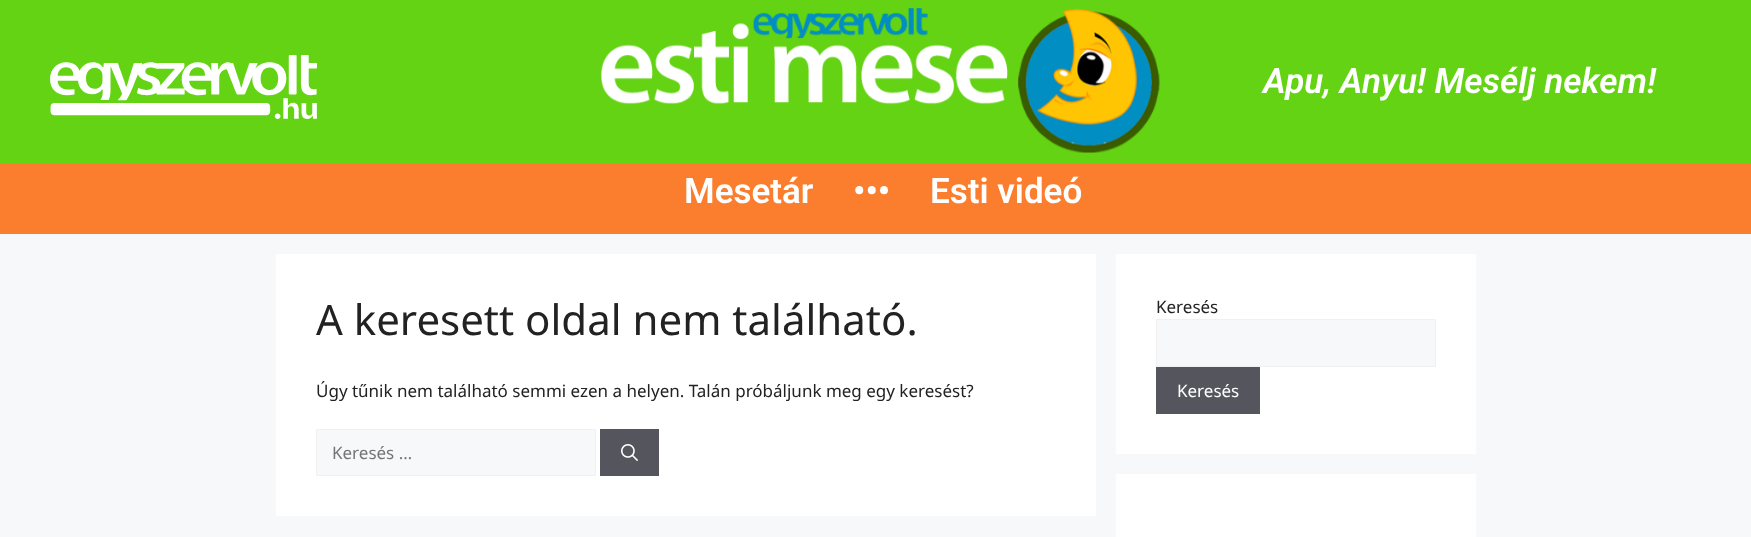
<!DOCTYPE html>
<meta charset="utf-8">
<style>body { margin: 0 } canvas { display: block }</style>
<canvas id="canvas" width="1751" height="537"></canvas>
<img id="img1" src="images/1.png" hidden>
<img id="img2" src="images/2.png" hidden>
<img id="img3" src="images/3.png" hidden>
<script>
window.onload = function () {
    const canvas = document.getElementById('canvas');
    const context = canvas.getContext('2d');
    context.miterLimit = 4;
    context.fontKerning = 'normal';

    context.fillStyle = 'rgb(247, 248, 249)';
    context.fillRect(0, 0, 1751, 537);
    context.fillStyle = 'rgb(99, 211, 19)';
    context.fillRect(0, 0, 1751, 164);
    context.drawImage(document.getElementById('img1'), 50, 55, 267, 64);
    context.drawImage(document.getElementById('img2'), 601, 8, 559, 145);
    context.fillStyle = 'rgb(250, 126, 45)';
    context.fillRect(0, 164, 1751, 70);
    context.fillStyle = 'rgb(255, 255, 255)';
    context.fillRect(276, 254, 820, 262);
    context.fillStyle = 'rgb(247, 248, 249)';
    context.beginPath();
    context.rect(316.5, 429.5, 279, 46);
    context.fill();
    context.strokeStyle = 'rgb(240, 240, 240)';
    context.stroke();
    context.fillStyle = 'rgb(85, 85, 94)';
    context.fillRect(600, 429, 59, 47);
    context.drawImage(document.getElementById('img3'), 621, 444, 17, 17);
    context.fillStyle = 'rgb(255, 255, 255)';
    context.fillRect(1116, 254, 360, 200);
    context.fillStyle = 'rgb(247, 248, 249)';
    context.beginPath();
    context.rect(1156.5, 319.5, 279, 47);
    context.fill();
    context.stroke();
    context.fillStyle = 'rgb(85, 85, 94)';
    context.fillRect(1156, 367, 104, 47);
    context.fillStyle = 'rgb(255, 255, 255)';
    context.fillRect(1116, 474, 360, 63);
    context.font = 'italic 600 35px Roboto';
    context.fillText('Apu, Anyu! Mesélj nekem!', 1263, 93);
    context.font = '600 35px Roboto';
    context.fillText('Mesetár', 684, 203);
    context.fillText('•••', 853, 203);
    context.fillText('Esti videó', 930, 203);
    context.font = '42px Noto Sans';
    context.fillStyle = 'rgb(34, 34, 34)';
    context.fillText('A keresett oldal nem található.', 316, 335);
    context.font = '17px Noto Sans';
    context.fillText('Úgy tűnik nem található semmi ezen a helyen. Talán próbáljunk meg egy keresést?', 316, 397);
    context.fillStyle = 'rgb(117, 117, 117)';
    context.fillText('Keresés …', 332, 459);
    context.fillStyle = 'rgb(34, 34, 34)';
    context.fillText('Keresés', 1156, 313);
    context.fillStyle = 'rgb(255, 255, 255)';
    context.fillText('Keresés', 1177, 397);
};
</script>
